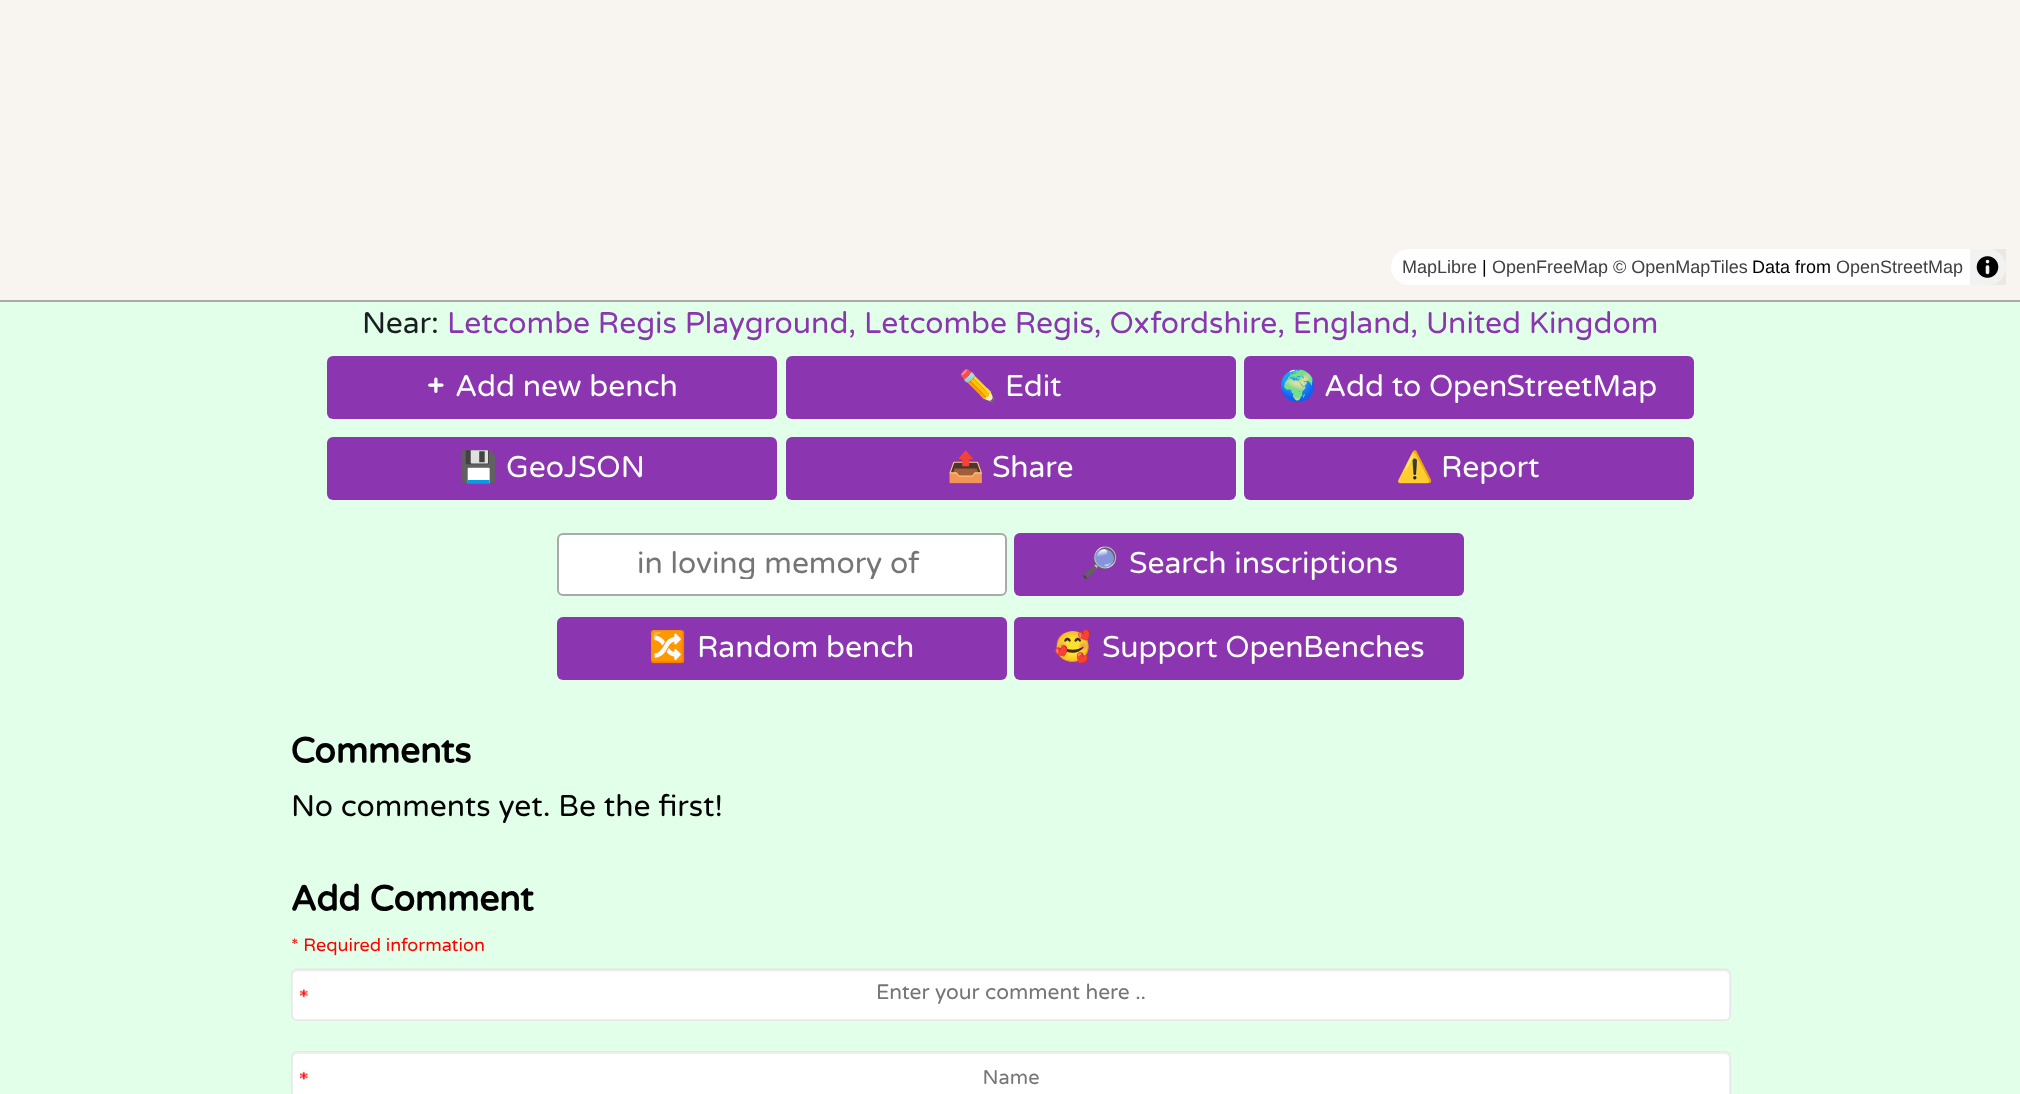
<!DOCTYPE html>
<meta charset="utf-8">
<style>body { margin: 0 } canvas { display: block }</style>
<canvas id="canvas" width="2020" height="1094"></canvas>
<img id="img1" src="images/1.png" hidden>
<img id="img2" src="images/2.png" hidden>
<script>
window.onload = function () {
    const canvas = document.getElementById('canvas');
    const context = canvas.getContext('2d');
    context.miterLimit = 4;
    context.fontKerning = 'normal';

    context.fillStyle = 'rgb(225, 255, 233)';
    context.fillRect(0, 0, 2020, 1094);
    context.fillStyle = 'rgb(170, 170, 170)';
    context.fillRect(0, 300, 2020, 2);
    context.fillStyle = 'rgb(248, 244, 240)';
    context.fillRect(0, 0, 2020, 300);
    context.fillStyle = 'rgb(255, 255, 255)';
    context.beginPath();
    context.roundRect(1391, 249, 615, 36, 18);
    context.fill();
    context.fillStyle = 'rgba(0, 0, 0, 0.05)';
    context.fillRect(1970, 249, 36, 36);
    context.drawImage(document.getElementById('img1'), 1976, 256, 23, 22);
    context.fillStyle = 'rgb(140, 53, 176)';
    context.beginPath();
    context.roundRect(327, 356, 450, 63, 6);
    context.fill();
    context.beginPath();
    context.roundRect(786, 356, 450, 63, 6);
    context.fill();
    context.beginPath();
    context.roundRect(1244, 356, 450, 63, 6);
    context.fill();
    context.beginPath();
    context.roundRect(327, 437, 450, 63, 6);
    context.fill();
    context.beginPath();
    context.roundRect(786, 437, 450, 63, 6);
    context.fill();
    context.beginPath();
    context.roundRect(1244, 437, 450, 63, 6);
    context.fill();
    context.fillStyle = 'rgb(255, 255, 255)';
    context.beginPath();
    context.roundRect(558, 534, 448, 61, 5);
    context.fill();
    context.strokeStyle = 'rgb(170, 170, 170)';
    context.lineWidth = 2;
    context.stroke();
    context.fillStyle = 'rgb(140, 53, 176)';
    context.beginPath();
    context.roundRect(1014, 533, 450, 63, 6);
    context.fill();
    context.beginPath();
    context.roundRect(557, 617, 450, 63, 6);
    context.fill();
    context.beginPath();
    context.roundRect(1014, 617, 450, 63, 6);
    context.fill();
    context.drawImage(document.getElementById('img2'), 291, 736, 1440, 358);
    context.font = '18px Liberation Sans';
    context.fillStyle = 'rgb(64, 64, 64)';
    context.fillText('MapLibre', 1402, 273);
    context.fillStyle = 'rgb(0, 0, 0)';
    context.fillText('|', 1482, 273);
    context.fillStyle = 'rgb(64, 64, 64)';
    context.fillText('OpenFreeMap © OpenMapTiles', 1492, 273);
    context.fillStyle = 'rgb(0, 0, 0)';
    context.fillText('Data from', 1752, 273);
    context.fillStyle = 'rgb(64, 64, 64)';
    context.fillText('OpenStreetMap', 1836, 273);
    context.font = '30px Varela Round';
    context.fillStyle = 'rgb(25, 30, 32)';
    context.fillText('Near:', 362, 333);
    context.fillStyle = 'rgb(140, 53, 176)';
    context.fillText('Letcombe Regis Playground, Letcombe Regis, Oxfordshire, England, United Kingdom', 447, 333);
    context.font = 'bold 30px Varela Round';
    context.fillStyle = 'rgb(255, 255, 255)';
    context.fillText('+', 427, 396);
    context.font = '30px Varela Round';
    context.fillText('Add new bench', 455, 396);
    context.font = '30px Noto Color Emoji';
    context.fillText('✏️', 959, 396);
    context.font = '30px Varela Round';
    context.fillText('Edit', 1005, 396);
    context.font = '30px Noto Color Emoji';
    context.fillText('🌍', 1279, 396);
    context.font = '30px Varela Round';
    context.fillText('Add to OpenStreetMap', 1324, 396);
    context.font = '30px Noto Color Emoji';
    context.fillText('💾', 460, 477);
    context.font = '30px Varela Round';
    context.fillText('GeoJSON', 506, 477);
    context.font = '30px Noto Color Emoji';
    context.fillText('📤', 947, 477);
    context.font = '30px Varela Round';
    context.fillText('Share', 992, 477);
    context.font = '30px Noto Color Emoji';
    context.fillText('⚠️', 1396, 477);
    context.font = '30px Varela Round';
    context.fillText('Report', 1441, 477);
    context.save();
    context.beginPath();
    context.rect(576, 549, 405, 30);
    context.clip();
    context.fillStyle = 'rgb(117, 117, 117)';
    context.fillText('in loving memory of', 637, 573);
    context.restore();
    context.font = 'bold 30px Noto Color Emoji';
    context.fillText('🔎', 1081, 573);
    context.font = '30px Varela Round';
    context.fillText('Search inscriptions', 1129, 573);
    context.font = 'bold 30px Noto Color Emoji';
    context.fillText('🔀', 649, 657);
    context.font = '30px Varela Round';
    context.fillText('Random bench', 697, 657);
    context.font = 'bold 30px Noto Color Emoji';
    context.fillText('🥰', 1054, 657);
    context.font = '30px Varela Round';
    context.fillText('Support OpenBenches', 1102, 657);
};
</script>
